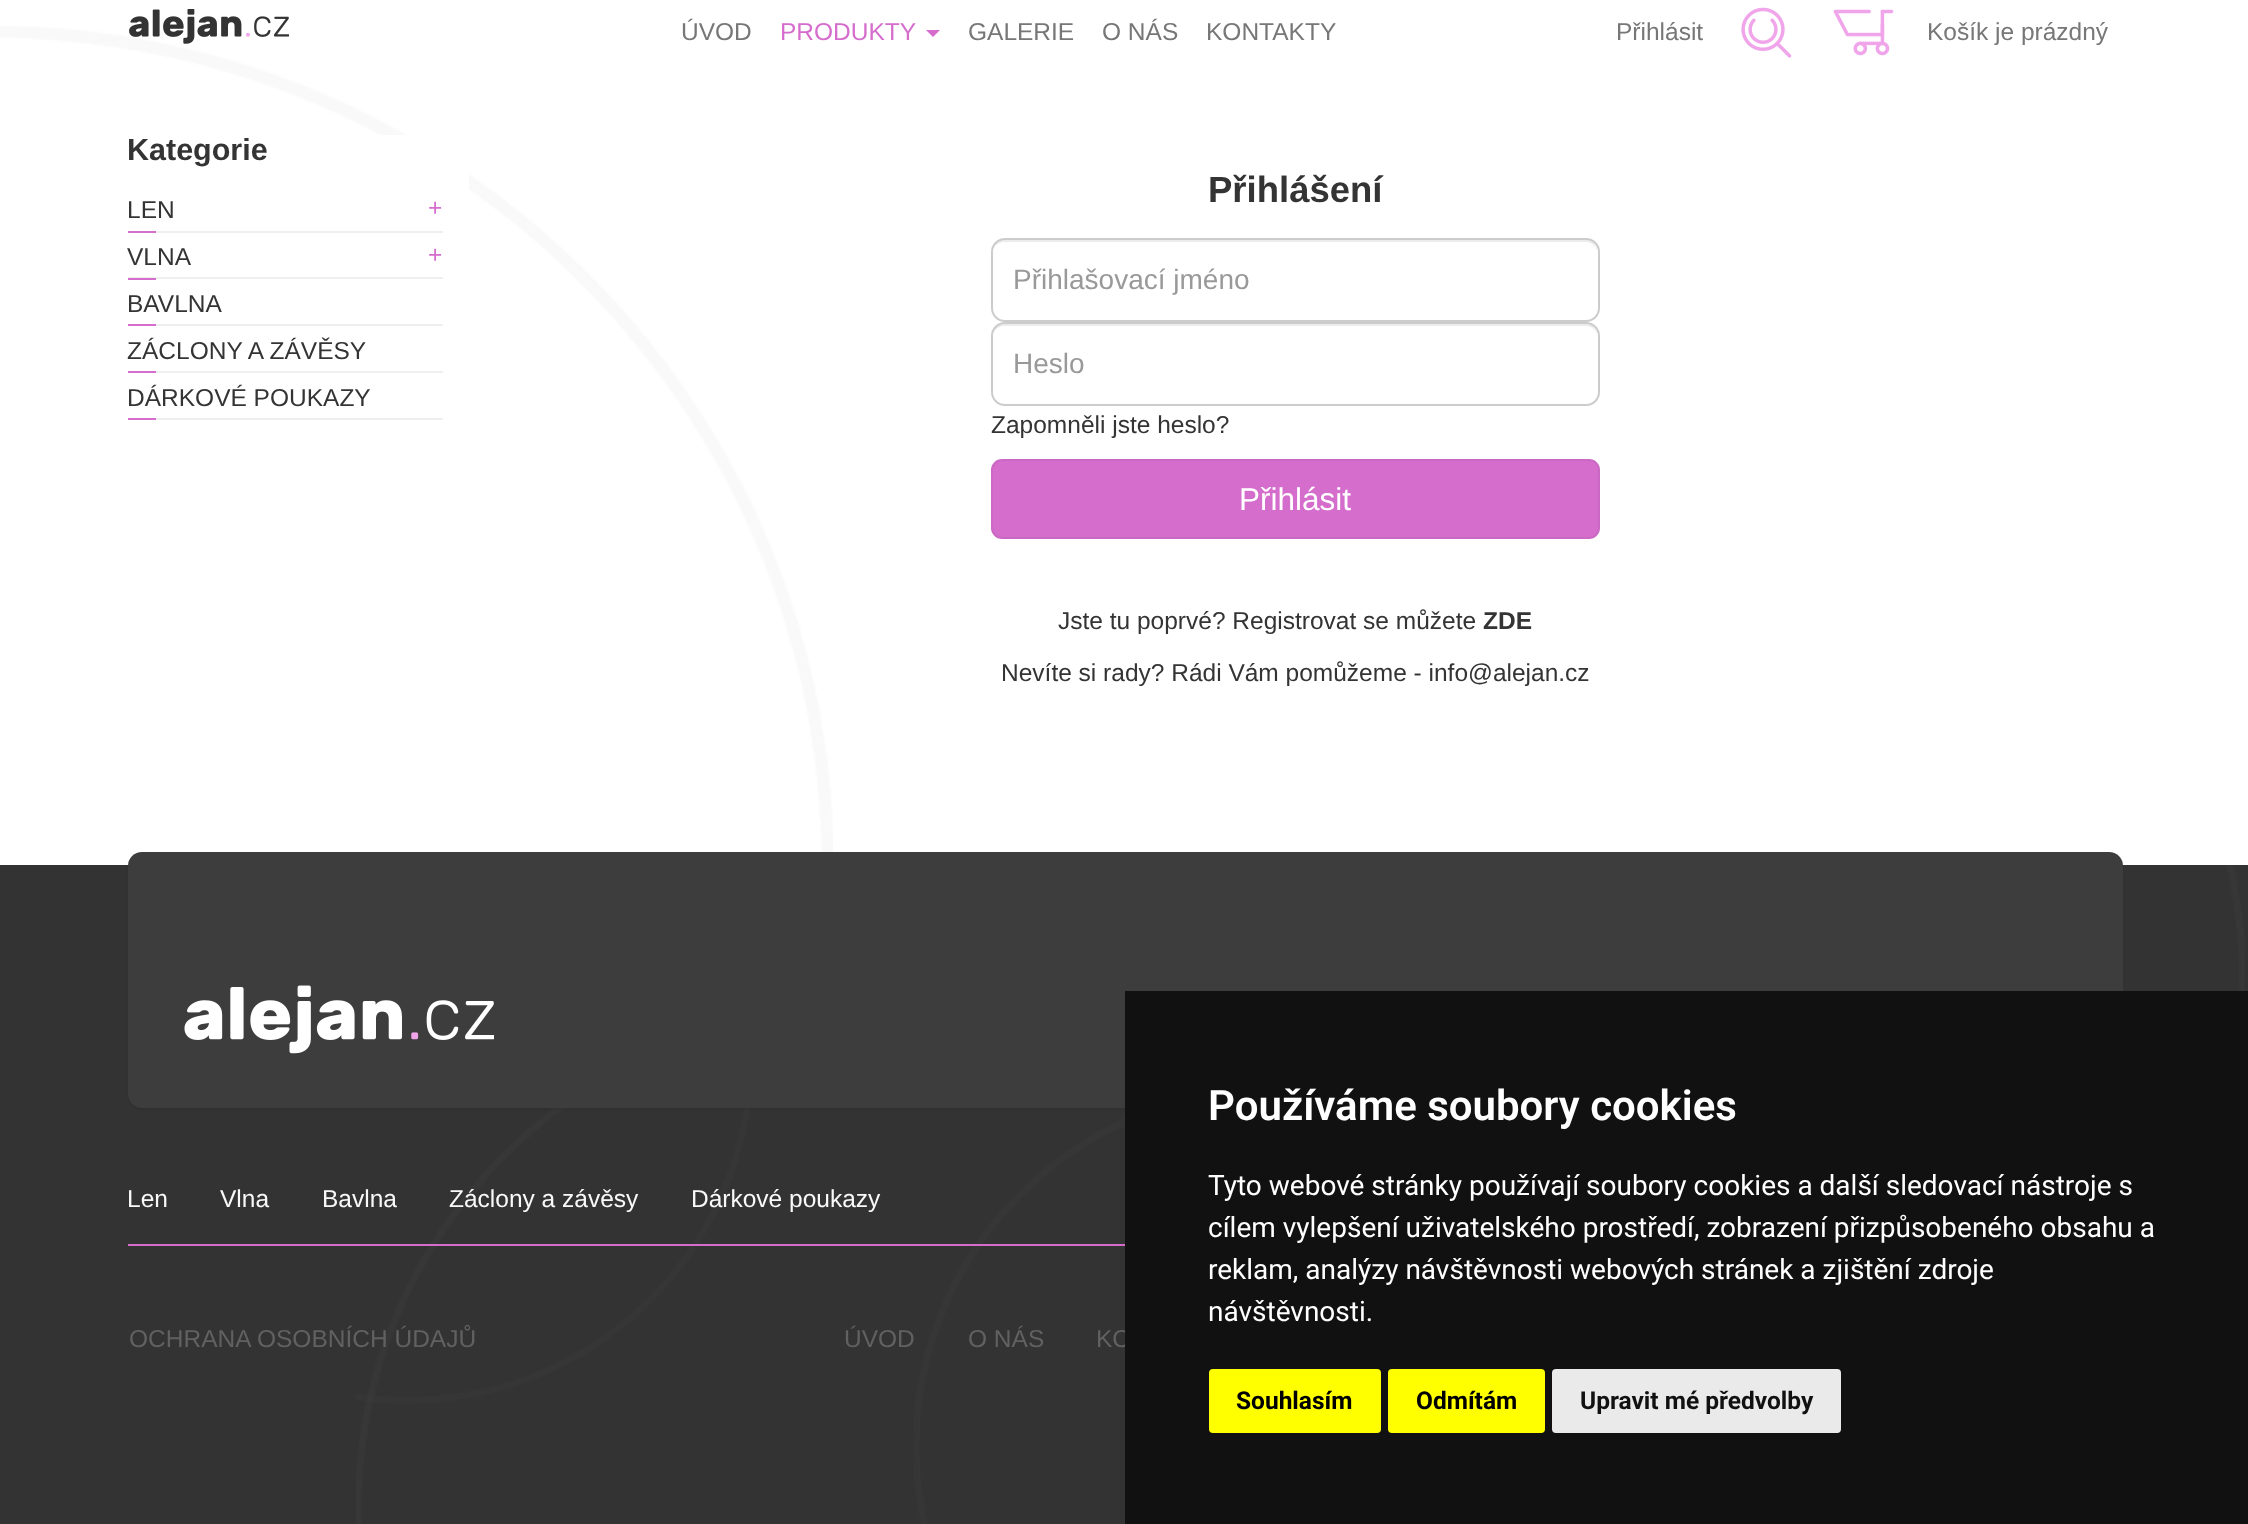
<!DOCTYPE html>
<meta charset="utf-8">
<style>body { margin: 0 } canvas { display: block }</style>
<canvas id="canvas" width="2248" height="1524"></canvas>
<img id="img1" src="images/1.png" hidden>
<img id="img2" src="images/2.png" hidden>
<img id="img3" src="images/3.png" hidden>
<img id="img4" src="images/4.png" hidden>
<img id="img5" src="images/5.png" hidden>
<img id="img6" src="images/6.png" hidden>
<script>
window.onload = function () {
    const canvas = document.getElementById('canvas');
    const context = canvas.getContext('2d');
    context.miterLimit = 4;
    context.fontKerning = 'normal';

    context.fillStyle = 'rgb(255, 255, 255)';
    context.fillRect(0, 0, 2248, 1524);
    context.drawImage(document.getElementById('img1'), 0, 26, 833, 839);
    context.drawImage(document.getElementById('img2'), 129, 9, 160, 35);
    context.fillStyle = 'rgb(213, 109, 205)';
    context.beginPath();
    context.moveTo(926, 30);
    context.lineTo(940, 30);
    context.lineTo(933, 37);
    context.closePath();
    context.fill();
    context.drawImage(document.getElementById('img3'), 1741, 7, 51, 51);
    context.drawImage(document.getElementById('img4'), 1833, 9, 61, 47);
    context.fillStyle = 'rgb(255, 255, 255)';
    context.fillRect(381, 135, 88, 54);
    context.fillStyle = 'rgb(239, 239, 239)';
    context.fillRect(156, 231, 287, 2);
    context.fillStyle = 'rgb(213, 109, 205)';
    context.fillRect(128, 231, 28, 2);
    context.fillStyle = 'rgb(239, 239, 239)';
    context.fillRect(128, 277, 315, 2);
    context.fillStyle = 'rgb(213, 109, 205)';
    context.fillRect(128, 278, 28, 2);
    context.fillStyle = 'rgb(239, 239, 239)';
    context.fillRect(156, 324, 287, 2);
    context.fillStyle = 'rgb(213, 109, 205)';
    context.fillRect(128, 324, 28, 2);
    context.fillStyle = 'rgb(239, 239, 239)';
    context.fillRect(156, 371, 287, 2);
    context.fillStyle = 'rgb(213, 109, 205)';
    context.fillRect(128, 371, 28, 2);
    context.fillStyle = 'rgb(239, 239, 239)';
    context.fillRect(156, 418, 287, 2);
    context.fillStyle = 'rgb(213, 109, 205)';
    context.fillRect(128, 418, 28, 2);
    context.fillStyle = 'rgb(236, 236, 236)';
    context.beginPath();
    context.moveTo(1004, 242);
    context.lineTo(1586, 242);
    context.bezierCurveTo(1592, 242, 1598, 247, 1598, 254);
    context.bezierCurveTo(1598, 247, 1594, 240, 1586, 240);
    context.lineTo(1004, 240);
    context.bezierCurveTo(996, 240, 992, 247, 992, 254);
    context.bezierCurveTo(992, 247, 998, 242, 1004, 242);
    context.closePath();
    context.fill();
    context.beginPath();
    context.roundRect(992, 239, 607, 82, 13);
    context.strokeStyle = 'rgb(204, 204, 204)';
    context.lineWidth = 2;
    context.stroke();
    context.beginPath();
    context.moveTo(1004, 326);
    context.lineTo(1586, 326);
    context.bezierCurveTo(1592, 326, 1598, 331, 1598, 338);
    context.bezierCurveTo(1598, 331, 1594, 324, 1586, 324);
    context.lineTo(1004, 324);
    context.bezierCurveTo(996, 324, 992, 331, 992, 338);
    context.bezierCurveTo(992, 331, 998, 326, 1004, 326);
    context.closePath();
    context.fill();
    context.beginPath();
    context.roundRect(992, 323, 607, 82, 13);
    context.stroke();
    context.fillStyle = 'rgb(213, 109, 205)';
    context.beginPath();
    context.roundRect(992, 460, 607, 78, 10);
    context.fill();
    context.strokeStyle = 'rgb(203, 104, 195)';
    context.stroke();
    context.fillStyle = 'rgb(51, 51, 51)';
    context.fillRect(0, 865, 2248, 659);
    context.drawImage(document.getElementById('img5'), 356, 865, 1889, 659);
    context.fillStyle = 'rgba(0, 0, 0, 0.05)';
    context.filter = 'blur(1px)';
    context.beginPath();
    context.roundRect(128, 854, 1995, 256, 14);
    context.fill();
    context.filter = 'none';
    context.fillStyle = 'rgb(61, 61, 61)';
    context.beginPath();
    context.roundRect(128, 852, 1995, 256, 14);
    context.fill();
    context.drawImage(document.getElementById('img6'), 184, 985, 310, 69);
    context.fillStyle = 'rgb(213, 109, 205)';
    context.fillRect(128, 1244, 997, 2);
    context.font = '24.5px Liberation Sans';
    context.fillStyle = 'rgb(119, 119, 119)';
    context.fillText('ÚVOD', 681, 40);
    context.fillStyle = 'rgb(213, 109, 205)';
    context.fillText('PRODUKTY', 780, 40);
    context.fillStyle = 'rgb(119, 119, 119)';
    context.fillText('GALERIE', 968, 40);
    context.fillText('O NÁS', 1102, 40);
    context.fillText('KONTAKTY', 1206, 40);
    context.fillText('Přihlásit', 1616, 40);
    context.fillText('Košík je prázdný', 1927, 40);
    context.font = 'bold 30.5px Liberation Sans';
    context.fillStyle = 'rgb(52, 52, 52)';
    context.fillText('Kategorie', 127, 160);
    context.font = '24.5px Liberation Sans';
    context.fillText('LEN', 127, 218);
    context.fillStyle = 'rgb(213, 109, 205)';
    context.fillText('+', 428, 216);
    context.fillStyle = 'rgb(52, 52, 52)';
    context.fillText('VLNA', 127, 265);
    context.fillStyle = 'rgb(213, 109, 205)';
    context.fillText('+', 428, 263);
    context.fillStyle = 'rgb(52, 52, 52)';
    context.fillText('BAVLNA', 127, 312);
    context.fillText('ZÁCLONY A ZÁVĚSY', 127, 359);
    context.fillText('DÁRKOVÉ POUKAZY', 127, 406);
    context.font = 'bold 36.5px Liberation Sans';
    context.fillText('Přihlášení', 1208, 202);
    context.font = '28px Liberation Sans';
    context.fillStyle = 'rgb(153, 153, 153)';
    context.fillText('Přihlašovací jméno', 1013, 289);
    context.fillText('Heslo', 1013, 373);
    context.font = '24.5px Liberation Sans';
    context.fillStyle = 'rgb(52, 52, 52)';
    context.fillText('Zapomněli jste heslo?', 991, 433);
    context.font = '31.5px Liberation Sans';
    context.fillStyle = 'rgb(255, 255, 255)';
    context.fillText('Přihlásit', 1239, 510);
    context.font = '24.5px Liberation Sans';
    context.fillStyle = 'rgb(52, 52, 52)';
    context.fillText('Jste tu poprvé? Registrovat se můžete', 1058, 629);
    context.font = 'bold 24.5px Liberation Sans';
    context.fillText('ZDE', 1483, 629);
    context.font = '24.5px Liberation Sans';
    context.fillText('Nevíte si rady? Rádi Vám pomůžeme - info@alejan.cz', 1001, 681);
    context.fillStyle = 'rgb(249, 249, 249)';
    context.fillText('Len', 127, 1207);
    context.fillText('Vlna', 220, 1207);
    context.fillText('Bavlna', 322, 1207);
    context.fillText('Záclony a závěsy', 449, 1207);
    context.fillText('Dárkové poukazy', 691, 1207);
    context.fillStyle = 'rgb(97, 97, 97)';
    context.fillText('OCHRANA OSOBNÍCH ÚDAJŮ', 129, 1347);
    context.fillText('ÚVOD', 844, 1347);
    context.fillText('O NÁS', 968, 1347);
    context.fillText('KO', 1096, 1347);
    context.fillStyle = 'rgb(17, 17, 17)';
    context.fillRect(1125, 991, 1123, 533);
    context.font = '600 42px Roboto';
    context.fillStyle = 'rgb(255, 255, 255)';
    context.fillText('Používáme soubory cookies', 1208, 1120);
    context.font = '28px Roboto';
    context.fillText('Tyto webové stránky používají soubory cookies a další sledovací nástroje s', 1208, 1195);
    context.fillText('cílem vylepšení uživatelského prostředí, zobrazení přizpůsobeného obsahu a', 1208, 1237);
    context.fillText('reklam, analýzy návštěvnosti webových stránek a zjištění zdroje', 1208, 1279);
    context.fillText('návštěvnosti.', 1208, 1321);
    context.fillStyle = 'rgb(255, 255, 0)';
    context.beginPath();
    context.roundRect(1209, 1369, 172, 64, 4);
    context.fill();
    context.font = 'bold 24.5px Roboto';
    context.fillStyle = 'rgb(0, 0, 0)';
    context.fillText('Souhlasím', 1236, 1409);
    context.fillStyle = 'rgb(255, 255, 0)';
    context.beginPath();
    context.roundRect(1388, 1369, 157, 64, 4);
    context.fill();
    context.fillStyle = 'rgb(0, 0, 0)';
    context.fillText('Odmítám', 1416, 1409);
    context.fillStyle = 'rgb(234, 234, 234)';
    context.beginPath();
    context.roundRect(1552, 1369, 289, 64, 4);
    context.fill();
    context.fillStyle = 'rgb(17, 17, 17)';
    context.fillText('Upravit mé předvolby', 1580, 1409);
};
</script>
